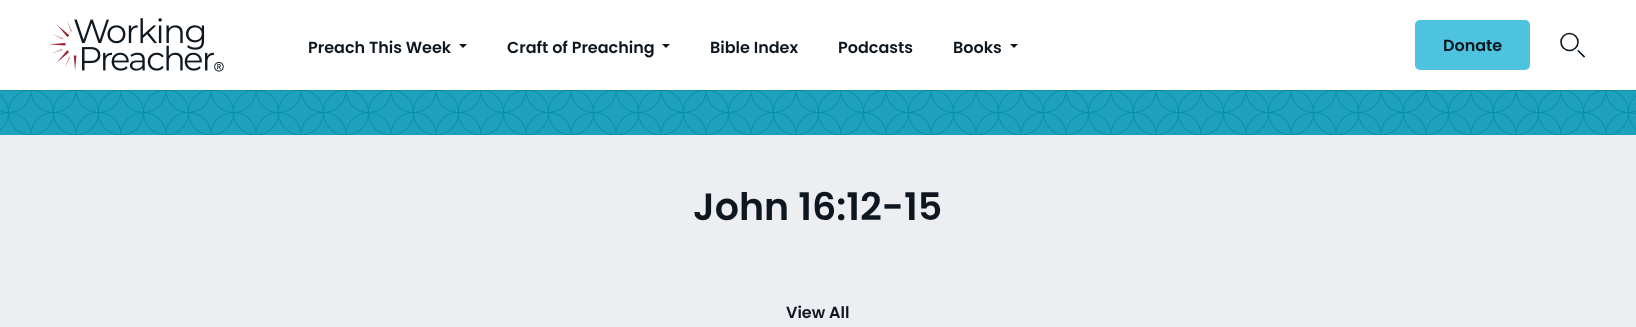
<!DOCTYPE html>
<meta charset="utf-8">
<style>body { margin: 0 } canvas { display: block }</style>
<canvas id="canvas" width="1636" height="327"></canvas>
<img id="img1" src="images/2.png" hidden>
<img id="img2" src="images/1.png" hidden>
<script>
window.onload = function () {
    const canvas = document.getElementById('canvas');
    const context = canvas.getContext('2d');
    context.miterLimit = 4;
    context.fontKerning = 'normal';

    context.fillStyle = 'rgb(237, 238, 242)';
    context.fillRect(0, 0, 1636, 327);
    context.drawImage(document.getElementById('img1'), 0, 90, 1636, 45);
    context.fillStyle = 'rgba(0, 0, 0, 0.1)';
    context.fillRect(0, 90, 1636, 1);
    context.fillStyle = 'rgb(255, 255, 255)';
    context.fillRect(0, 0, 1636, 90);
    context.drawImage(document.getElementById('img2'), 49, 18, 175, 54);
    context.fillStyle = 'rgb(14, 23, 31)';
    context.beginPath();
    context.moveTo(459, 44);
    context.lineTo(467, 44);
    context.lineTo(463, 48);
    context.closePath();
    context.fill();
    context.beginPath();
    context.moveTo(662, 44);
    context.lineTo(670, 44);
    context.lineTo(666, 48);
    context.closePath();
    context.fill();
    context.beginPath();
    context.moveTo(1010, 44);
    context.lineTo(1018, 44);
    context.lineTo(1014, 48);
    context.closePath();
    context.fill();
    context.fillStyle = 'rgb(78, 195, 224)';
    context.beginPath();
    context.roundRect(1415, 20, 115, 50, 5);
    context.fill();
    context.beginPath();
    context.arc(1569.5, 42, 8.5, 0, 2 * Math.PI);
    context.strokeStyle = 'rgb(14, 23, 31)';
    context.lineWidth = 1.6;
    context.stroke();
    context.beginPath();
    context.moveTo(1578.5, 51);
    context.lineTo(1584, 56.5);
    context.lineCap = 'square';
    context.stroke();
    context.font = '600 16px Poppins';
    context.fillStyle = 'rgb(14, 23, 31)';
    context.fillText('Preach This Week', 308, 53);
    context.fillText('Craft of Preaching', 507, 53);
    context.fillText('Bible Index', 710, 53);
    context.fillText('Podcasts', 838, 53);
    context.fillText('Books', 953, 53);
    context.fillText('Donate', 1443, 51);
    context.font = '600 38px Poppins';
    context.fillText('John 16:12-15', 693, 220);
    context.font = '600 16px Poppins';
    context.fillText('View All', 786, 318);
};
</script>
